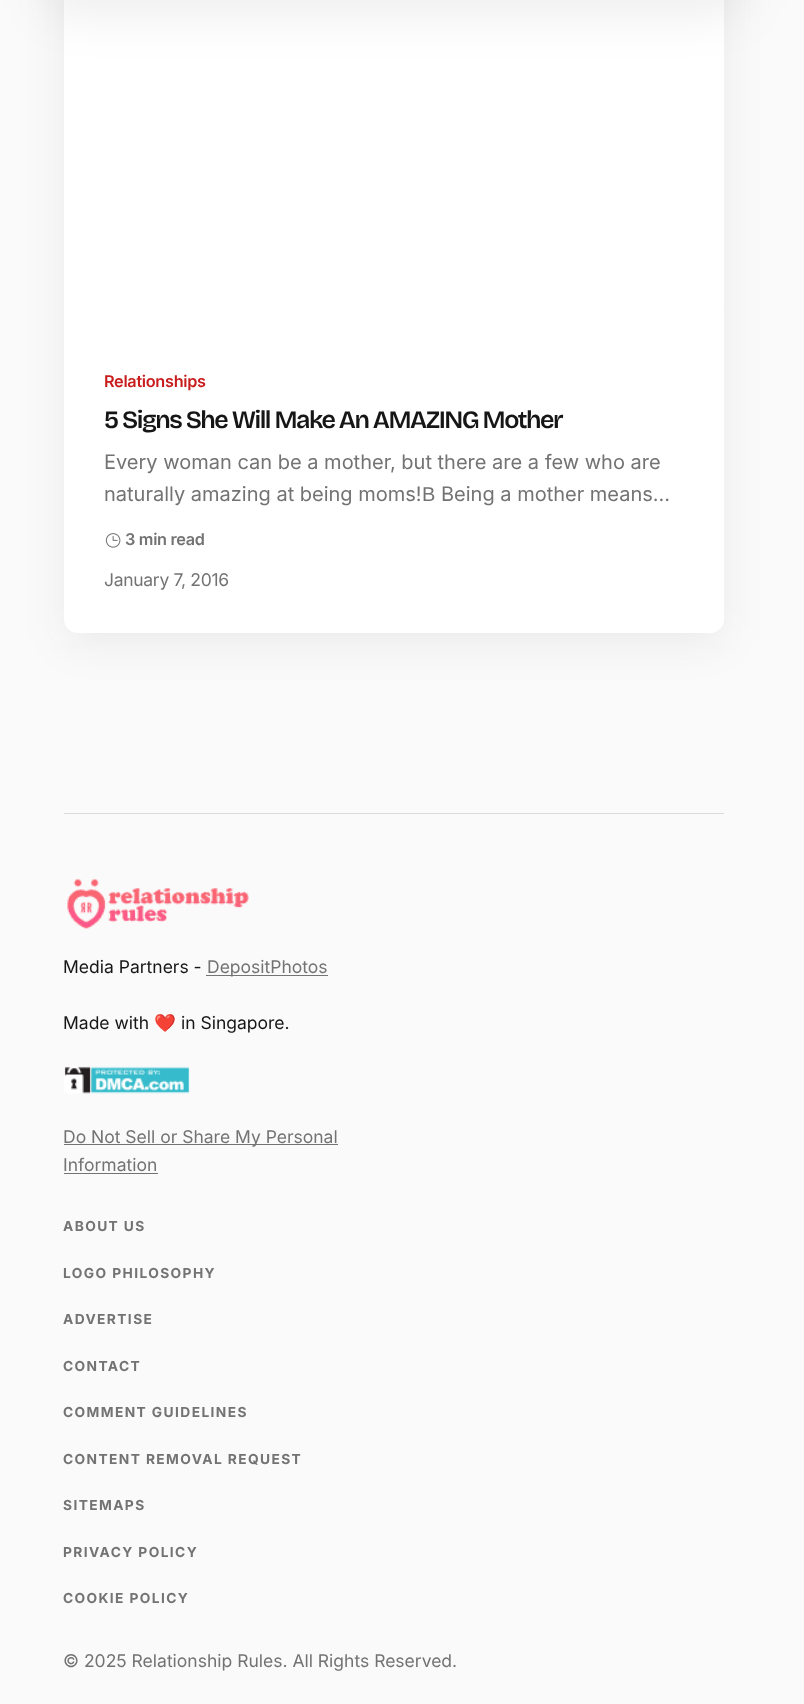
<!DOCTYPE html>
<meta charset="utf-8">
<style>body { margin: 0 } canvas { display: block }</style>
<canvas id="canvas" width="804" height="1704"></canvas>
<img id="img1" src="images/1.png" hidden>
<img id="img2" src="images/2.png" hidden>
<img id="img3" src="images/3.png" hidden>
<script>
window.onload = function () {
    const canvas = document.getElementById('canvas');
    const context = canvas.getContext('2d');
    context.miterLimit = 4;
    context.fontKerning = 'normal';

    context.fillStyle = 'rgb(250, 250, 250)';
    context.fillRect(0, 0, 804, 1704);
    context.fillStyle = 'rgba(22, 22, 22, 0.07)';
    context.filter = 'blur(20px)';
    context.beginPath();
    context.roundRect(64, -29, 660, 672, 13);
    context.fill();
    context.filter = 'none';
    context.fillStyle = 'rgb(255, 255, 255)';
    context.beginPath();
    context.roundRect(64.5, -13.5, 659, 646, 12.5);
    context.fill();
    context.strokeStyle = 'rgb(255, 255, 255)';
    context.stroke();
    context.fillStyle = 'rgba(0, 0, 15, 0.07)';
    context.filter = 'blur(25px)';
    context.beginPath();
    context.roundRect(44, -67, 700, 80, 18);
    context.fill();
    context.filter = 'none';
    context.drawImage(document.getElementById('img1'), 105, 533, 16, 15);
    context.fillStyle = 'rgb(219, 219, 219)';
    context.fillRect(64, 813, 660, 1);
    context.drawImage(document.getElementById('img2'), 67, 879, 182, 50);
    context.fillStyle = 'rgb(115, 115, 115)';
    context.fillRect(206, 975, 122, 1);
    context.drawImage(document.getElementById('img3'), 64, 1066, 126, 28);
    context.fillRect(64, 1144, 274, 1);
    context.fillRect(64, 1173, 94, 1);
    context.letterSpacing = '-0.3px';
    context.font = '600 16.25px Inter';
    context.fillStyle = 'rgb(201, 28, 28)';
    context.fillText('Relationships', 104, 387);
    context.letterSpacing = '-1.5px';
    context.font = '600 25px Bricolage Grotesque';
    context.fillStyle = 'rgb(22, 22, 22)';
    context.fillText('5 Signs She Will Make An AMAZING Mother', 104, 428);
    context.letterSpacing = '0px';
    context.font = '20px Inter';
    context.fillStyle = 'rgb(115, 115, 115)';
    context.fillText('Every woman can be a mother, but there are a few who are', 104, 469);
    context.fillText('naturally amazing at being moms!', 104, 501);
    context.font = '20px Liberation Sans';
    context.fillText('В', 422, 501);
    context.font = '20px Inter';
    context.fillText('Being a mother means…', 441, 501);
    context.letterSpacing = '-0.3px';
    context.font = '600 16.25px Inter';
    context.fillText('3 min read', 125, 545);
    context.font = '17.5px Inter';
    context.fillText('January 7, 2016', 104, 586);
    context.letterSpacing = '0px';
    context.fillStyle = 'rgb(22, 22, 22)';
    context.fillText('Media Partners -', 63, 973);
    context.fillStyle = 'rgb(115, 115, 115)';
    context.fillText('DepositPhotos', 207, 973);
    context.fillStyle = 'rgb(22, 22, 22)';
    context.fillText('Made with', 63, 1029);
    context.font = '17.5px Noto Color Emoji';
    context.fillText('❤️', 154, 1029);
    context.font = '17.5px Inter';
    context.fillText('in Singapore.', 181, 1029);
    context.fillStyle = 'rgb(115, 115, 115)';
    context.fillText('Do Not Sell or Share My Personal', 63, 1143);
    context.fillText('Information', 63, 1171);
    context.letterSpacing = '1.4px';
    context.font = 'bold 13.75px Inter';
    context.fillText('ABOUT US', 63, 1231);
    context.fillText('LOGO PHILOSOPHY', 63, 1278);
    context.fillText('ADVERTISE', 63, 1324);
    context.fillText('CONTACT', 63, 1371);
    context.fillText('COMMENT GUIDELINES', 63, 1417);
    context.fillText('CONTENT REMOVAL REQUEST', 63, 1464);
    context.fillText('SITEMAPS', 63, 1510);
    context.fillText('PRIVACY POLICY', 63, 1557);
    context.fillText('COOKIE POLICY', 63, 1603);
    context.letterSpacing = '0px';
    context.font = '17.5px Inter';
    context.fillText('© 2025 Relationship Rules. All Rights Reserved.', 63, 1667);
};
</script>
